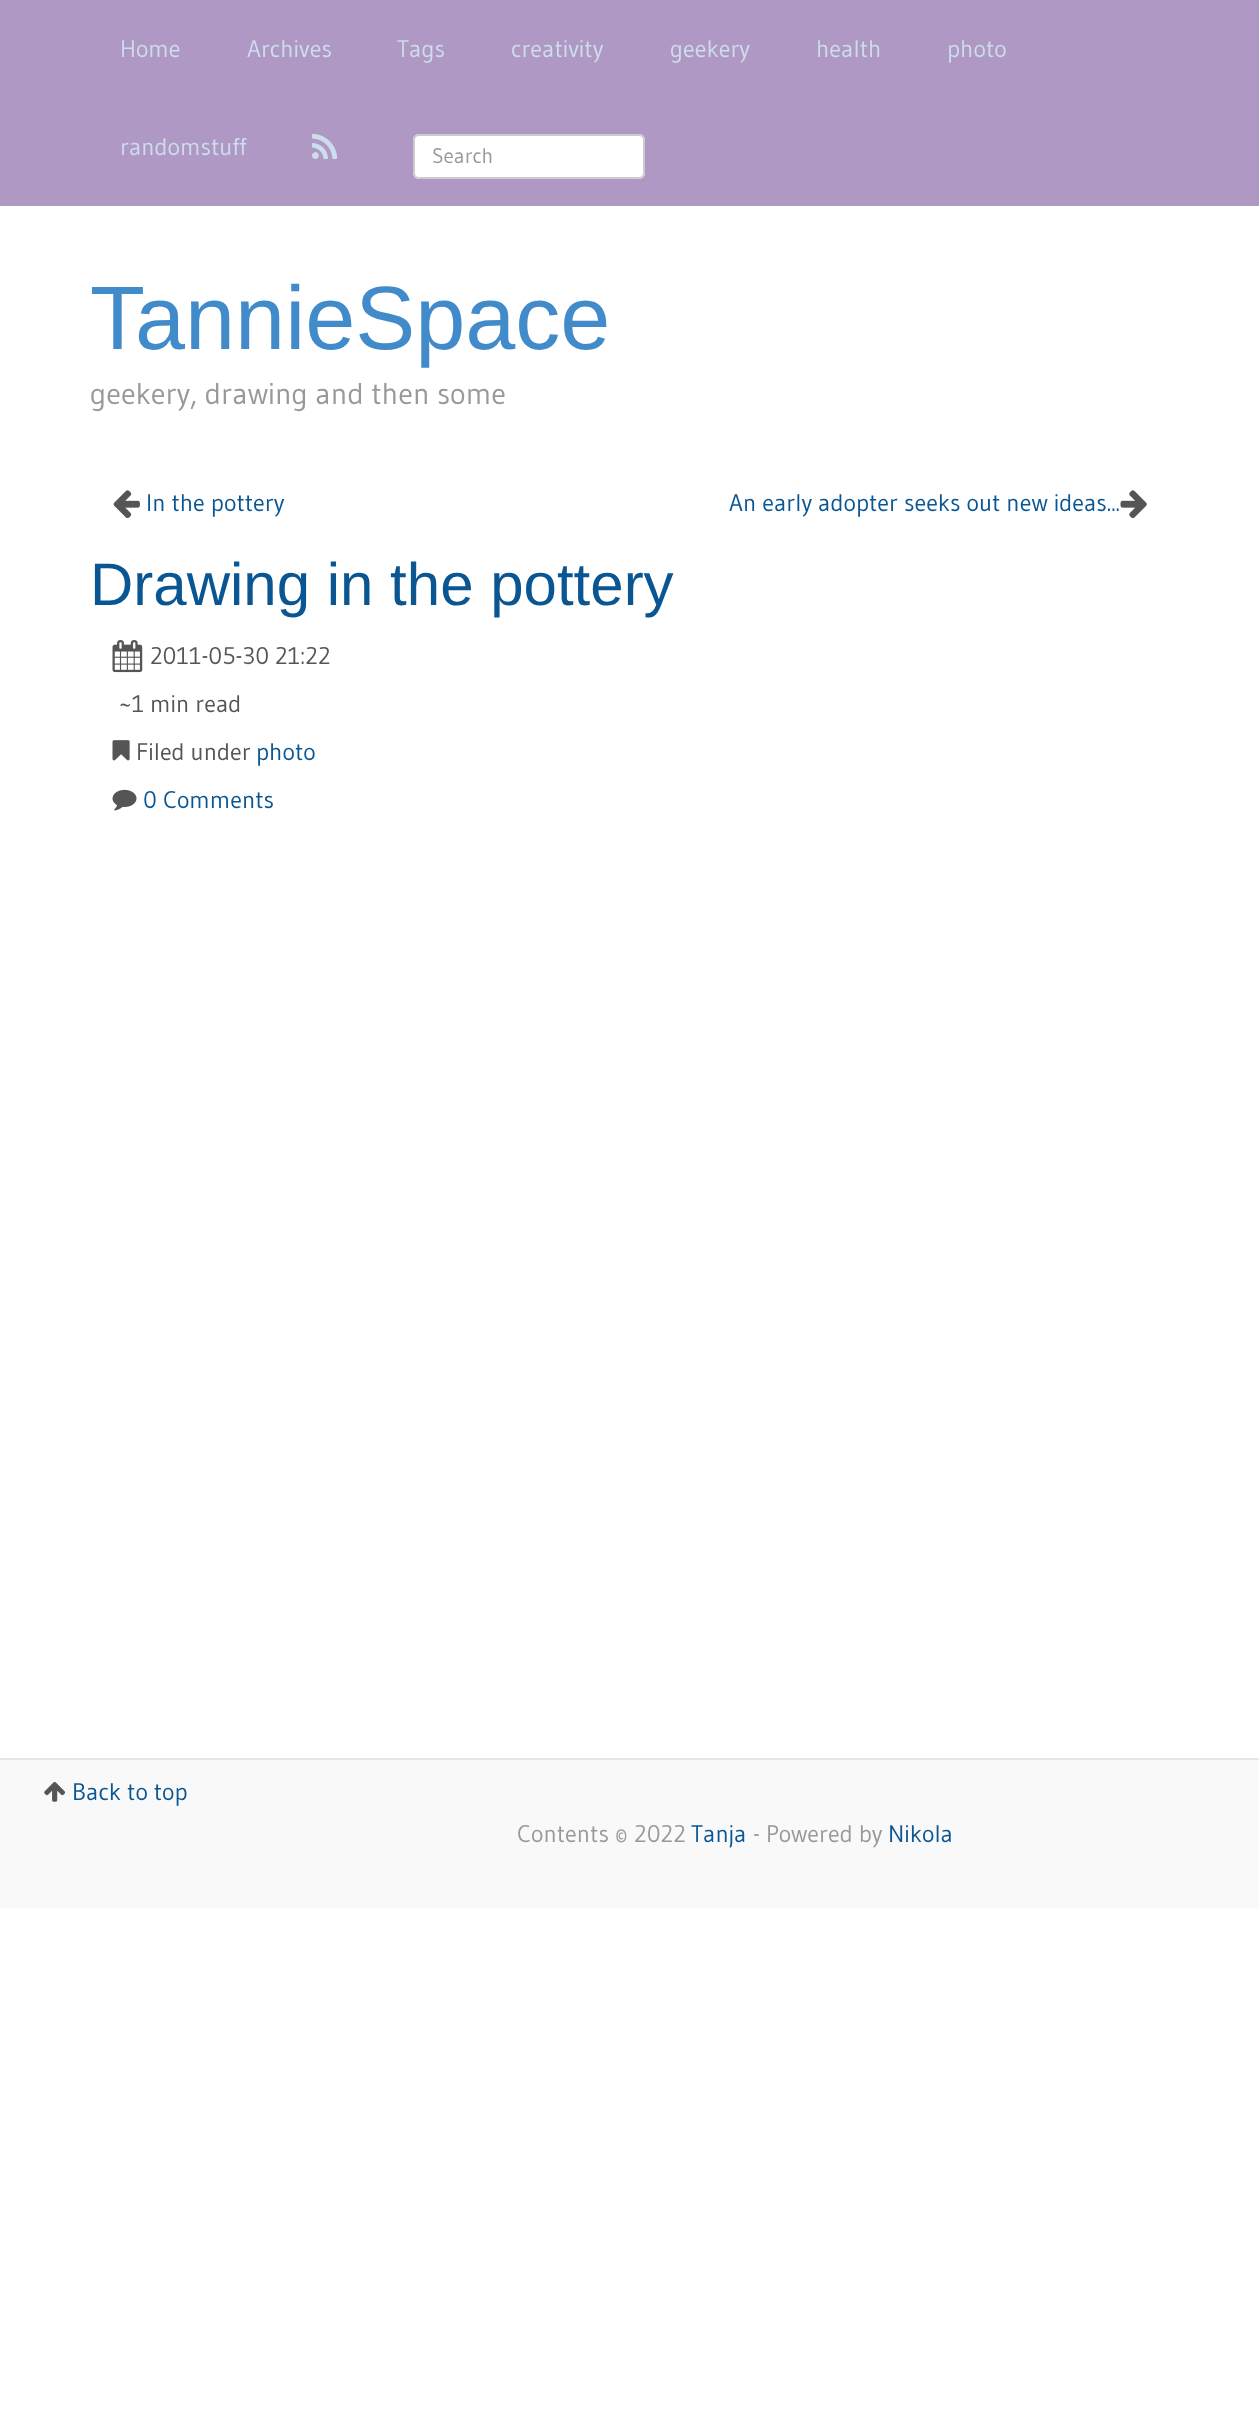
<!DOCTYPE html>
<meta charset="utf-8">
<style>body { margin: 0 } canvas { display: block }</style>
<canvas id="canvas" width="1259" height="2432"></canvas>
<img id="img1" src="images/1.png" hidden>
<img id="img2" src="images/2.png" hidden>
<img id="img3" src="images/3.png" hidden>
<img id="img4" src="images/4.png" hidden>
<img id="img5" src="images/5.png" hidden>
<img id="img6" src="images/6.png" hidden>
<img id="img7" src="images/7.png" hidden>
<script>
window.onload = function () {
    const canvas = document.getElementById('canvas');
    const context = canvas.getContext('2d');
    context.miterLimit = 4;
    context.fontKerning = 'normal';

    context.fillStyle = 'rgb(255, 255, 255)';
    context.fillRect(0, 0, 1259, 2432);
    context.fillStyle = 'rgb(175, 153, 196)';
    context.fillRect(0, 0, 1259, 206);
    context.drawImage(document.getElementById('img1'), 312, 133, 26, 26);
    context.fillStyle = 'rgb(255, 255, 255)';
    context.beginPath();
    context.roundRect(413, 134, 232, 45, 6);
    context.fill();
    context.fillStyle = 'rgb(236, 236, 236)';
    context.beginPath();
    context.moveTo(418, 136);
    context.lineTo(639, 136);
    context.bezierCurveTo(641, 136, 644, 139, 644, 141);
    context.lineTo(644, 140);
    context.bezierCurveTo(644, 137, 642, 135, 639, 135);
    context.lineTo(419, 135);
    context.bezierCurveTo(416, 135, 414, 137, 414, 140);
    context.lineTo(414, 141);
    context.bezierCurveTo(414, 139, 416, 136, 418, 136);
    context.closePath();
    context.fill();
    context.beginPath();
    context.roundRect(414, 135, 230, 43, 5);
    context.strokeStyle = 'rgb(204, 204, 204)';
    context.lineWidth = 2;
    context.stroke();
    context.drawImage(document.getElementById('img2'), 113, 490, 27, 29);
    context.drawImage(document.getElementById('img3'), 1120, 490, 27, 29);
    context.drawImage(document.getElementById('img4'), 112, 640, 31, 33);
    context.drawImage(document.getElementById('img5'), 112, 740, 18, 21);
    context.drawImage(document.getElementById('img6'), 112, 789, 25, 22);
    context.fillStyle = 'rgb(249, 249, 249)';
    context.fillRect(0, 1760, 1259, 148);
    context.drawImage(document.getElementById('img7'), 44, 1782, 22, 20);
    context.fillStyle = 'rgb(229, 229, 229)';
    context.fillRect(0, 1758, 1259, 2);
    context.font = '24px Gudea';
    context.fillStyle = 'rgb(205, 221, 235)';
    context.fillText('Home', 120, 57);
    context.fillText('Archives', 247, 57);
    context.fillText('Tags', 397, 57);
    context.fillText('creativity', 511, 57);
    context.fillText('geekery', 670, 57);
    context.fillText('health', 816, 57);
    context.fillText('photo', 947, 57);
    context.fillText('randomstuff', 120, 155);
    context.font = '21px Gudea';
    context.fillStyle = 'rgb(153, 153, 153)';
    context.fillText('Search', 432, 163);
    context.font = '90px Liberation Sans';
    context.fillStyle = 'rgb(66, 139, 202)';
    context.fillText('TannieSpace', 90, 349);
    context.font = '30px Gudea';
    context.fillStyle = 'rgb(153, 153, 153)';
    context.fillText('geekery, drawing and then some', 90, 404);
    context.font = '24px Gudea';
    context.fillStyle = 'rgb(10, 86, 147)';
    context.fillText('In the pottery', 146, 511);
    context.fillText('An early adopter seeks out new ideas...', 729, 511);
    context.font = '60px Liberation Sans';
    context.fillText('Drawing in the pottery', 90, 605);
    context.font = '24px Gudea';
    context.fillStyle = 'rgb(85, 85, 85)';
    context.fillText('2011-05-30 21:22', 150, 664);
    context.fillText('~1 min read', 119, 712);
    context.fillText('Filed under', 136, 760);
    context.fillStyle = 'rgb(10, 86, 147)';
    context.fillText('photo', 256, 760);
    context.fillText('0 Comments', 143, 808);
    context.fillText('Back to top', 72, 1800);
    context.fillStyle = 'rgb(153, 153, 153)';
    context.fillText('Contents © 2022', 517, 1842);
    context.fillStyle = 'rgb(10, 86, 147)';
    context.fillText('Tanja', 691, 1842);
    context.fillStyle = 'rgb(153, 153, 153)';
    context.fillText('- Powered by', 753, 1842);
    context.fillStyle = 'rgb(10, 86, 147)';
    context.fillText('Nikola', 888, 1842);
};
</script>
